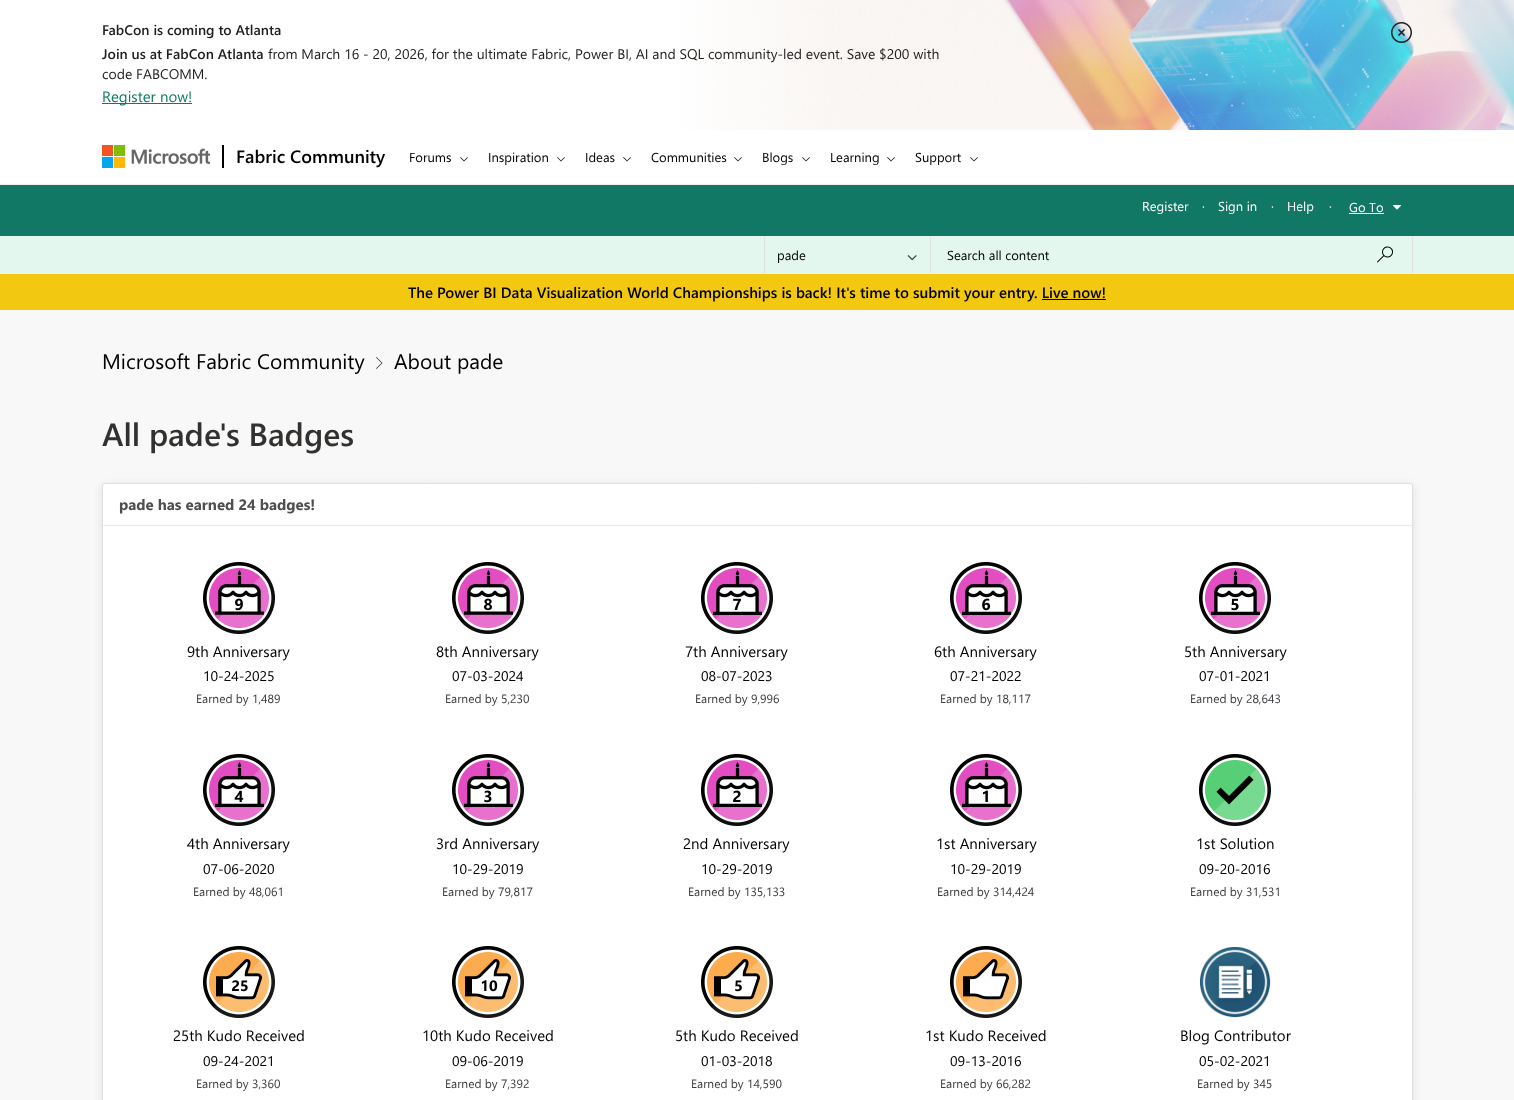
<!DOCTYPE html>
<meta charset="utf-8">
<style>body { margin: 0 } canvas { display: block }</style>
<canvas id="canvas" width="1514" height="1100"></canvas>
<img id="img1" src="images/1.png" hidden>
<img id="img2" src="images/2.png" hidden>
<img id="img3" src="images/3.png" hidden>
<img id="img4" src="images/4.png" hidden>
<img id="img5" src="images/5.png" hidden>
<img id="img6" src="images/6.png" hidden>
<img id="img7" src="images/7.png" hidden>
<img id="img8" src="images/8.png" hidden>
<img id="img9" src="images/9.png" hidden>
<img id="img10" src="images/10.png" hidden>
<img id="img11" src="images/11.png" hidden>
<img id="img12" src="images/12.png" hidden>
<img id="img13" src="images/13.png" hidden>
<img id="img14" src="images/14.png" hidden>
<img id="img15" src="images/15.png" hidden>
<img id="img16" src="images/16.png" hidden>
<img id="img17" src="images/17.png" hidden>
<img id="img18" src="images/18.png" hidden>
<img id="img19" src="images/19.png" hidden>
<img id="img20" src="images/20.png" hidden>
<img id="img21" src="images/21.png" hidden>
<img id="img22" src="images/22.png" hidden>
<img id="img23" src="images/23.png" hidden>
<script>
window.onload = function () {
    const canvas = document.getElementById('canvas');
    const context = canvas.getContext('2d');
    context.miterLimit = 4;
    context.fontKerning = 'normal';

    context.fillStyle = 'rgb(248, 248, 248)';
    context.fillRect(0, 0, 1514, 1100);
    context.drawImage(document.getElementById('img1'), 0, 0, 1514, 130);
    context.fillStyle = 'rgb(17, 120, 101)';
    context.fillRect(102, 103, 90, 1);
    context.drawImage(document.getElementById('img2'), 1391, 22, 21, 21);
    context.fillStyle = 'rgb(255, 255, 255)';
    context.fillRect(0, 130, 1514, 54);
    context.fillStyle = 'rgb(239, 239, 239)';
    context.fillRect(0, 184, 1514, 1);
    context.drawImage(document.getElementById('img3'), 102, 145, 108, 23);
    context.fillStyle = 'rgb(0, 0, 0)';
    context.fillRect(222, 145, 2, 23);
    context.drawImage(document.getElementById('img4'), 460, 157, 8, 5);
    context.drawImage(document.getElementById('img4'), 557, 157, 8, 5);
    context.drawImage(document.getElementById('img4'), 623, 157, 8, 5);
    context.drawImage(document.getElementById('img4'), 734, 157, 8, 5);
    context.drawImage(document.getElementById('img4'), 802, 157, 8, 5);
    context.drawImage(document.getElementById('img4'), 887, 157, 8, 5);
    context.drawImage(document.getElementById('img4'), 970, 157, 8, 5);
    context.fillStyle = 'rgb(17, 120, 101)';
    context.fillRect(0, 185, 1514, 51);
    context.fillStyle = 'rgb(255, 255, 255)';
    context.fillRect(1349, 213, 35, 1);
    context.drawImage(document.getElementById('img5'), 1393, 205, 8, 5);
    context.fillStyle = 'rgb(227, 247, 239)';
    context.fillRect(0, 236, 1514, 38);
    context.fillStyle = 'rgb(225, 225, 225)';
    context.fillRect(764, 236, 1, 38);
    context.drawImage(document.getElementById('img6'), 907, 255, 10, 6);
    context.fillRect(1412, 236, 1, 37);
    context.fillRect(930, 236, 1, 37);
    context.drawImage(document.getElementById('img7'), 1377, 246, 16, 17);
    context.fillStyle = 'rgb(242, 200, 17)';
    context.fillRect(0, 274, 1514, 36);
    context.fillStyle = 'rgb(0, 0, 0)';
    context.fillRect(1042, 299, 64, 1);
    context.drawImage(document.getElementById('img8'), 376, 357, 7, 12);
    context.fillStyle = 'rgba(0, 0, 0, 0.1)';
    context.filter = 'blur(4px)';
    context.beginPath();
    context.roundRect(102, 485, 1311, 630, 3);
    context.fill();
    context.filter = 'none';
    context.fillStyle = 'rgb(255, 255, 255)';
    context.beginPath();
    context.roundRect(102.5, 483.5, 1310, 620, 2.5);
    context.fill();
    context.strokeStyle = 'rgb(224, 224, 224)';
    context.stroke();
    context.fillStyle = 'rgb(234, 234, 234)';
    context.fillRect(103, 525, 1309, 1);
    context.drawImage(document.getElementById('img9'), 203, 562, 72, 72);
    context.drawImage(document.getElementById('img10'), 452, 562, 72, 72);
    context.drawImage(document.getElementById('img11'), 701, 562, 72, 72);
    context.drawImage(document.getElementById('img12'), 950, 562, 72, 72);
    context.drawImage(document.getElementById('img13'), 1199, 562, 72, 72);
    context.drawImage(document.getElementById('img14'), 203, 754, 72, 72);
    context.drawImage(document.getElementById('img15'), 452, 754, 72, 72);
    context.drawImage(document.getElementById('img16'), 701, 754, 72, 72);
    context.drawImage(document.getElementById('img17'), 950, 754, 72, 72);
    context.drawImage(document.getElementById('img18'), 1199, 754, 72, 72);
    context.drawImage(document.getElementById('img19'), 203, 946, 72, 72);
    context.drawImage(document.getElementById('img20'), 452, 946, 72, 72);
    context.drawImage(document.getElementById('img21'), 701, 946, 72, 72);
    context.drawImage(document.getElementById('img22'), 950, 946, 72, 72);
    context.drawImage(document.getElementById('img23'), 1200, 947, 71, 71);
    context.font = '600 14px Segoe UI';
    context.fillStyle = 'rgb(32, 31, 30)';
    context.fillText('FabCon is coming to Atlanta', 102, 35);
    context.font = '600 14px "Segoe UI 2"';
    context.fillText('Join us at FabCon Atlanta', 102, 59);
    context.font = '14px Segoe UI';
    context.fillText('from March 16 - 20, 2026, for the ultimate Fabric, Power BI, AI and SQL community-led event. Save $200 with', 268, 59);
    context.fillText('code FABCOMM.', 102, 79);
    context.font = '15px Segoe UI';
    context.fillStyle = 'rgb(17, 120, 101)';
    context.fillText('Register now!', 102, 102);
    context.font = '600 18px "Segoe UI 2"';
    context.fillStyle = 'rgb(0, 0, 0)';
    context.fillText('Fabric Community', 236, 163);
    context.font = '13px Segoe UI';
    context.fillText('Forums', 409, 162);
    context.fillText('Inspiration', 488, 162);
    context.fillText('Ideas', 585, 162);
    context.fillText('Communities', 651, 162);
    context.fillText('Blogs', 762, 162);
    context.fillText('Learning', 830, 162);
    context.fillText('Support', 915, 162);
    context.fillStyle = 'rgb(255, 255, 255)';
    context.fillText('Register', 1142, 211);
    context.fillText('·', 1202, 211);
    context.fillText('Sign in', 1218, 211);
    context.fillText('·', 1271, 211);
    context.fillText('Help', 1287, 211);
    context.fillText('·', 1329, 211);
    context.fillText('Go To', 1349, 212);
    context.fillStyle = 'rgb(0, 0, 0)';
    context.fillText('pade', 777, 260);
    context.fillText('Search all content', 947, 260);
    context.font = '600 15px Segoe UI';
    context.fillText('The Power BI Data Visualization World Championships is back! It\'s time to submit your entry. Live now!', 408, 298);
    context.font = '21px Segoe UI';
    context.fillText('Microsoft Fabric Community', 102, 369);
    context.fillText('About pade', 394, 369);
    context.font = '600 32px Segoe UI';
    context.fillStyle = 'rgb(50, 49, 48)';
    context.fillText('All pade\'s Badges', 102, 446);
    context.font = 'bold 15px Segoe UI';
    context.fillStyle = 'rgb(79, 79, 79)';
    context.fillText('pade has earned 24 badges!', 119, 510);
    context.font = '15px Segoe UI';
    context.fillStyle = 'rgb(0, 0, 0)';
    context.fillText('9th Anniversary', 187, 657);
    context.font = '14px Segoe UI';
    context.fillText('10-24-2025', 203, 681);
    context.font = '12px Segoe UI';
    context.fillStyle = 'rgb(60, 60, 65)';
    context.fillText('Earned by 1,489', 196, 703);
    context.font = '15px Segoe UI';
    context.fillStyle = 'rgb(0, 0, 0)';
    context.fillText('8th Anniversary', 436, 657);
    context.font = '14px Segoe UI';
    context.fillText('07-03-2024', 452, 681);
    context.font = '12px Segoe UI';
    context.fillStyle = 'rgb(60, 60, 65)';
    context.fillText('Earned by 5,230', 445, 703);
    context.font = '15px Segoe UI';
    context.fillStyle = 'rgb(0, 0, 0)';
    context.fillText('7th Anniversary', 685, 657);
    context.font = '14px Segoe UI';
    context.fillText('08-07-2023', 701, 681);
    context.font = '12px Segoe UI';
    context.fillStyle = 'rgb(60, 60, 65)';
    context.fillText('Earned by 9,996', 695, 703);
    context.font = '15px Segoe UI';
    context.fillStyle = 'rgb(0, 0, 0)';
    context.fillText('6th Anniversary', 934, 657);
    context.font = '14px Segoe UI';
    context.fillText('07-21-2022', 950, 681);
    context.font = '12px Segoe UI';
    context.fillStyle = 'rgb(60, 60, 65)';
    context.fillText('Earned by 18,117', 940, 703);
    context.font = '15px Segoe UI';
    context.fillStyle = 'rgb(0, 0, 0)';
    context.fillText('5th Anniversary', 1184, 657);
    context.font = '14px Segoe UI';
    context.fillText('07-01-2021', 1199, 681);
    context.font = '12px Segoe UI';
    context.fillStyle = 'rgb(60, 60, 65)';
    context.fillText('Earned by 28,643', 1190, 703);
    context.font = '15px Segoe UI';
    context.fillStyle = 'rgb(0, 0, 0)';
    context.fillText('4th Anniversary', 187, 849);
    context.font = '14px Segoe UI';
    context.fillText('07-06-2020', 203, 874);
    context.font = '12px Segoe UI';
    context.fillStyle = 'rgb(60, 60, 65)';
    context.fillText('Earned by 48,061', 193, 896);
    context.font = '15px Segoe UI';
    context.fillStyle = 'rgb(0, 0, 0)';
    context.fillText('3rd Anniversary', 436, 849);
    context.font = '14px Segoe UI';
    context.fillText('10-29-2019', 452, 874);
    context.font = '12px Segoe UI';
    context.fillStyle = 'rgb(60, 60, 65)';
    context.fillText('Earned by 79,817', 442, 896);
    context.font = '15px Segoe UI';
    context.fillStyle = 'rgb(0, 0, 0)';
    context.fillText('2nd Anniversary', 683, 849);
    context.font = '14px Segoe UI';
    context.fillText('10-29-2019', 701, 874);
    context.font = '12px Segoe UI';
    context.fillStyle = 'rgb(60, 60, 65)';
    context.fillText('Earned by 135,133', 688, 896);
    context.font = '15px Segoe UI';
    context.fillStyle = 'rgb(0, 0, 0)';
    context.fillText('1st Anniversary', 936, 849);
    context.font = '14px Segoe UI';
    context.fillText('10-29-2019', 950, 874);
    context.font = '12px Segoe UI';
    context.fillStyle = 'rgb(60, 60, 65)';
    context.fillText('Earned by 314,424', 937, 896);
    context.font = '15px Segoe UI';
    context.fillStyle = 'rgb(0, 0, 0)';
    context.fillText('1st Solution', 1196, 849);
    context.font = '14px Segoe UI';
    context.fillText('09-20-2016', 1199, 874);
    context.font = '12px Segoe UI';
    context.fillStyle = 'rgb(60, 60, 65)';
    context.fillText('Earned by 31,531', 1190, 896);
    context.font = '15px Segoe UI';
    context.fillStyle = 'rgb(0, 0, 0)';
    context.fillText('25th Kudo Received', 173, 1041);
    context.font = '14px Segoe UI';
    context.fillText('09-24-2021', 203, 1066);
    context.font = '12px Segoe UI';
    context.fillStyle = 'rgb(60, 60, 65)';
    context.fillText('Earned by 3,360', 196, 1088);
    context.font = '15px Segoe UI';
    context.fillStyle = 'rgb(0, 0, 0)';
    context.fillText('10th Kudo Received', 422, 1041);
    context.font = '14px Segoe UI';
    context.fillText('09-06-2019', 452, 1066);
    context.font = '12px Segoe UI';
    context.fillStyle = 'rgb(60, 60, 65)';
    context.fillText('Earned by 7,392', 445, 1088);
    context.font = '15px Segoe UI';
    context.fillStyle = 'rgb(0, 0, 0)';
    context.fillText('5th Kudo Received', 675, 1041);
    context.font = '14px Segoe UI';
    context.fillText('01-03-2018', 701, 1066);
    context.font = '12px Segoe UI';
    context.fillStyle = 'rgb(60, 60, 65)';
    context.fillText('Earned by 14,590', 691, 1088);
    context.font = '15px Segoe UI';
    context.fillStyle = 'rgb(0, 0, 0)';
    context.fillText('1st Kudo Received', 925, 1041);
    context.font = '14px Segoe UI';
    context.fillText('09-13-2016', 950, 1066);
    context.font = '12px Segoe UI';
    context.fillStyle = 'rgb(60, 60, 65)';
    context.fillText('Earned by 66,282', 940, 1088);
    context.font = '15px Segoe UI';
    context.fillStyle = 'rgb(0, 0, 0)';
    context.fillText('Blog Contributor', 1180, 1041);
    context.font = '14px Segoe UI';
    context.fillText('05-02-2021', 1199, 1066);
    context.font = '12px Segoe UI';
    context.fillStyle = 'rgb(60, 60, 65)';
    context.fillText('Earned by 345', 1197, 1088);
};
</script>
